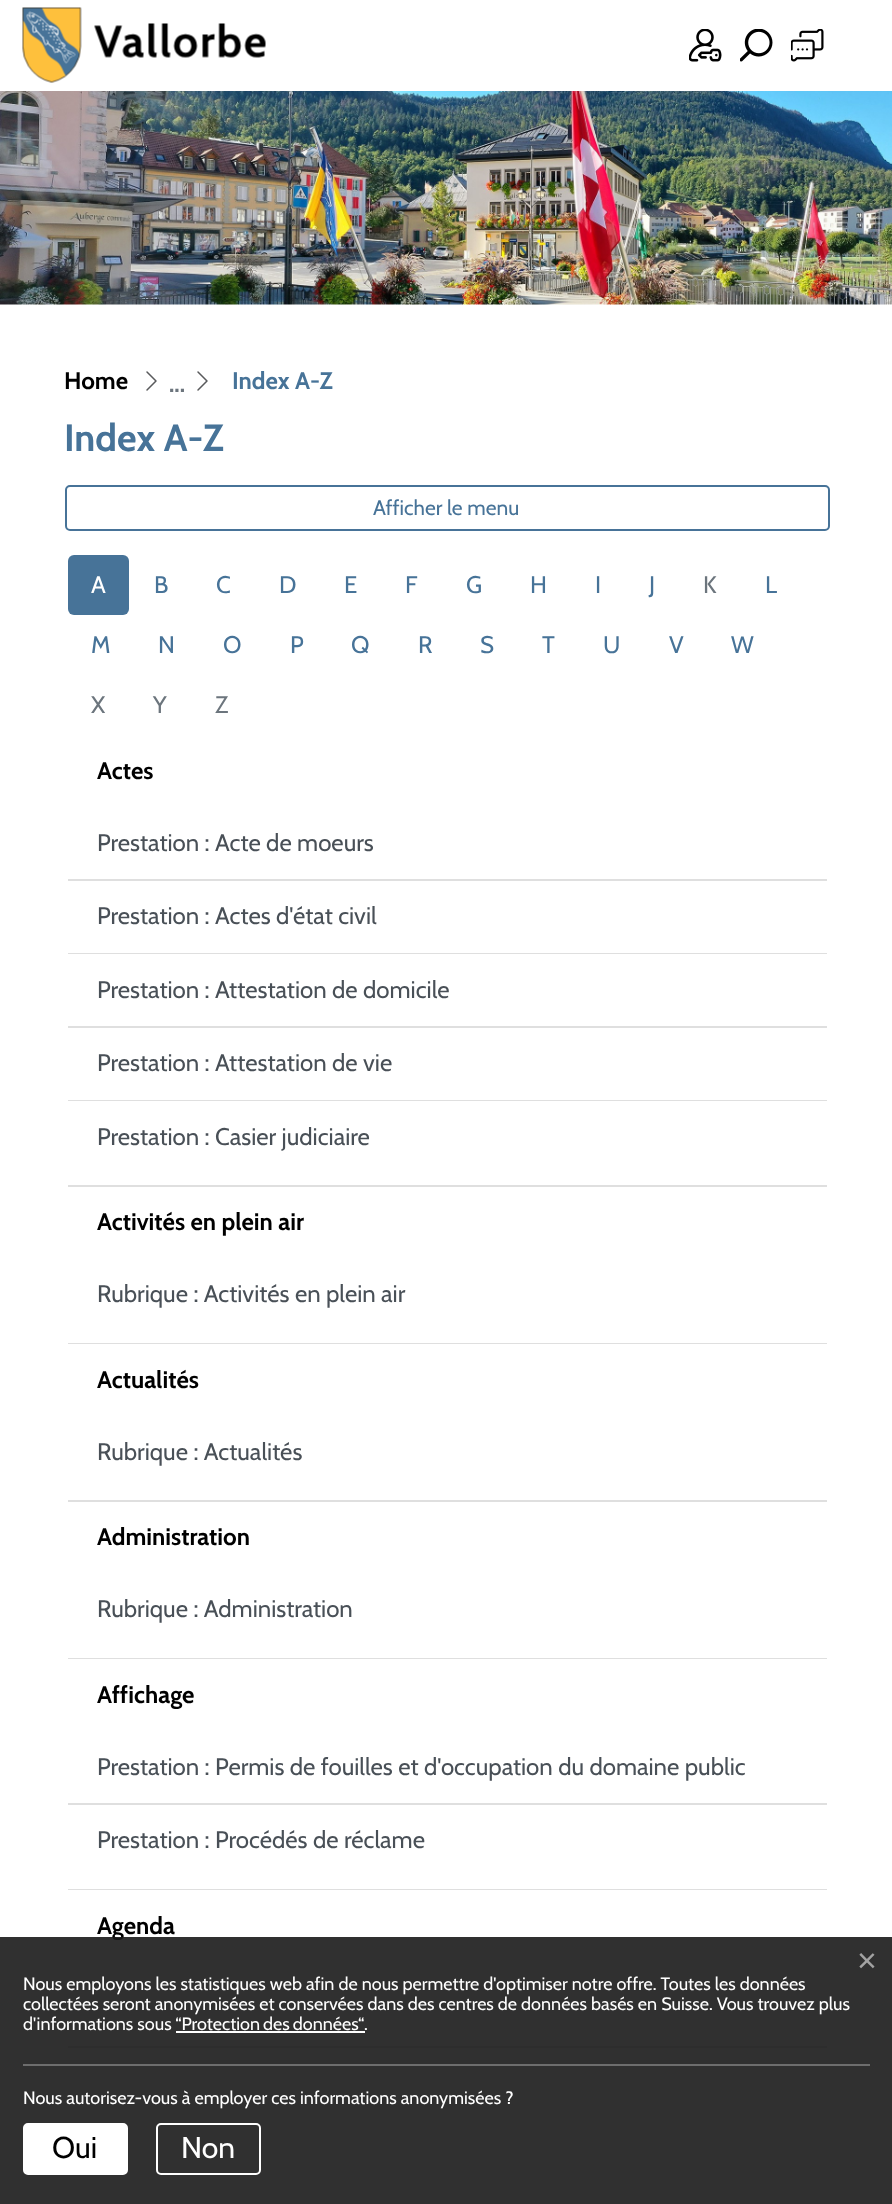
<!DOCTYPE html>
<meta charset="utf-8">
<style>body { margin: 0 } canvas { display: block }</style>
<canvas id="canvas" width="892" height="2204"></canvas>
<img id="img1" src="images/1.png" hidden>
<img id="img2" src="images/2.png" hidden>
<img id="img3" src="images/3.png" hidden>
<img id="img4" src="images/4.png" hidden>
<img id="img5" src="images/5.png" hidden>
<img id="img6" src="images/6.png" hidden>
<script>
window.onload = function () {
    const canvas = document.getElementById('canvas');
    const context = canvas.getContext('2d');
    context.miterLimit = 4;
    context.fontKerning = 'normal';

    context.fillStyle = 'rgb(255, 255, 255)';
    context.fillRect(0, 0, 892, 2204);
    context.drawImage(document.getElementById('img1'), 22, 7, 244, 76);
    context.drawImage(document.getElementById('img2'), 689, 29, 33, 33);
    context.drawImage(document.getElementById('img3'), 740, 29, 33, 33);
    context.drawImage(document.getElementById('img4'), 791, 29, 33, 33);
    context.drawImage(document.getElementById('img5'), 0, 91, 892, 214);
    context.drawImage(document.getElementById('img6'), 146, 371, 62, 20);
    context.beginPath();
    context.roundRect(66, 486, 763, 44, 4);
    context.strokeStyle = 'rgb(71, 115, 152)';
    context.lineWidth = 2;
    context.stroke();
    context.fillStyle = 'rgb(71, 115, 152)';
    context.beginPath();
    context.roundRect(68, 555, 61, 60, 6);
    context.fill();
    context.fillStyle = 'rgb(223, 223, 223)';
    context.fillRect(68, 1185, 759, 2);
    context.fillRect(68, 879, 759, 2);
    context.fillRect(68, 953, 759, 1);
    context.fillRect(68, 1026, 759, 2);
    context.fillRect(68, 1100, 759, 1);
    context.fillRect(68, 1343, 759, 1);
    context.fillRect(68, 1500, 759, 2);
    context.fillRect(68, 1658, 759, 1);
    context.fillRect(68, 1889, 759, 1);
    context.fillRect(68, 1803, 759, 2);
    context.fillRect(68, 2046, 759, 2);
    context.font = 'bold 24px Cabin';
    context.fillStyle = 'rgb(0, 0, 0)';
    context.fillText('Home', 64, 389);
    context.fillStyle = 'rgb(108, 117, 125)';
    context.fillText('...', 169, 392);
    context.fillStyle = 'rgb(71, 115, 152)';
    context.fillText('Index A-Z', 232, 389);
    context.font = 'bold 38px Cabin';
    context.fillText('Index A-Z', 64, 451);
    context.font = '21px Cabin';
    context.fillText('Afficher le menu', 373, 515);
    context.font = '24px Cabin';
    context.fillStyle = 'rgb(255, 255, 255)';
    context.fillText('A', 91, 593);
    context.fillStyle = 'rgb(71, 115, 152)';
    context.fillText('B', 154, 593);
    context.fillText('C', 216, 593);
    context.fillText('D', 279, 593);
    context.fillText('E', 344, 593);
    context.fillText('F', 405, 593);
    context.fillText('G', 466, 593);
    context.fillText('H', 530, 593);
    context.fillText('I', 595, 593);
    context.fillText('J', 649, 593);
    context.fillStyle = 'rgb(108, 117, 125)';
    context.fillText('K', 703, 593);
    context.fillStyle = 'rgb(71, 115, 152)';
    context.fillText('L', 765, 593);
    context.fillText('M', 91, 653);
    context.fillText('N', 158, 653);
    context.fillText('O', 223, 653);
    context.fillText('P', 290, 653);
    context.fillText('Q', 351, 653);
    context.fillText('R', 418, 653);
    context.fillText('S', 480, 653);
    context.fillText('T', 542, 653);
    context.fillText('U', 603, 653);
    context.fillText('V', 669, 653);
    context.fillText('W', 731, 653);
    context.fillStyle = 'rgb(108, 117, 125)';
    context.fillText('X', 91, 713);
    context.fillText('Y', 153, 713);
    context.fillText('Z', 215, 713);
    context.font = 'bold 24px Cabin';
    context.fillStyle = 'rgb(0, 0, 0)';
    context.fillText('Actes', 97, 779);
    context.font = '24px Cabin';
    context.fillStyle = 'rgb(73, 80, 87)';
    context.fillText('Prestation : Acte de moeurs', 97, 851);
    context.fillText('Prestation : Actes d\'état civil', 97, 924);
    context.fillText('Prestation : Attestation de domicile', 97, 998);
    context.fillText('Prestation : Attestation de vie', 97, 1071);
    context.fillText('Prestation : Casier judiciaire', 97, 1145);
    context.font = 'bold 24px Cabin';
    context.fillStyle = 'rgb(0, 0, 0)';
    context.fillText('Activités en plein air', 97, 1230);
    context.font = '24px Cabin';
    context.fillStyle = 'rgb(73, 80, 87)';
    context.fillText('Rubrique : Activités en plein air', 97, 1302);
    context.font = 'bold 24px Cabin';
    context.fillStyle = 'rgb(0, 0, 0)';
    context.fillText('Actualités', 97, 1388);
    context.font = '24px Cabin';
    context.fillStyle = 'rgb(73, 80, 87)';
    context.fillText('Rubrique : Actualités', 97, 1460);
    context.font = 'bold 24px Cabin';
    context.fillStyle = 'rgb(0, 0, 0)';
    context.fillText('Administration', 97, 1545);
    context.font = '24px Cabin';
    context.fillStyle = 'rgb(73, 80, 87)';
    context.fillText('Rubrique : Administration', 97, 1617);
    context.font = 'bold 24px Cabin';
    context.fillStyle = 'rgb(0, 0, 0)';
    context.fillText('Affichage', 97, 1703);
    context.font = '24px Cabin';
    context.fillStyle = 'rgb(73, 80, 87)';
    context.fillText('Prestation : Permis de fouilles et d\'occupation du domaine public', 97, 1775);
    context.fillText('Prestation : Procédés de réclame', 97, 1848);
    context.font = 'bold 24px Cabin';
    context.fillStyle = 'rgb(0, 0, 0)';
    context.fillText('Agenda', 97, 1934);
    context.fillStyle = 'rgba(25, 25, 25, 0.9)';
    context.fillRect(0, 1937, 892, 267);
    context.font = '34px Liberation Sans';
    context.fillStyle = 'rgb(162, 162, 162)';
    context.fillText('×', 857, 1972);
    context.fillStyle = 'rgb(109, 109, 109)';
    context.fillRect(23, 2064, 847, 2);
    context.font = '18px Cabin';
    context.fillStyle = 'rgb(255, 255, 255)';
    context.fillText('Nous employons les statistiques web afin de nous permettre d\'optimiser notre offre. Toutes les données', 23, 1990);
    context.fillText('collectées seront anonymisées et conservées dans des centres de données basés en Suisse. Vous trouvez plus', 23, 2010);
    context.fillText('d\'informations sous', 23, 2030);
    context.wordSpacing = '-1px';
    context.fillText('“Protection des données“', 175, 2030);
    context.fillRect(176, 2031, 189, 2);
    context.wordSpacing = '0px';
    context.fillText('.', 364, 2030);
    context.fillText('Nous autorisez-vous à employer ces informations anonymisées ?', 23, 2104);
    context.beginPath();
    context.roundRect(24, 2124, 103, 50, 4);
    context.fill();
    context.strokeStyle = 'rgb(255, 255, 255)';
    context.stroke();
    context.font = '30px Cabin';
    context.fillStyle = 'rgb(0, 0, 0)';
    context.fillText('Oui', 52, 2158);
    context.beginPath();
    context.roundRect(157, 2124, 103, 50, 4);
    context.stroke();
    context.fillStyle = 'rgb(255, 255, 255)';
    context.fillText('Non', 181, 2158);
};
</script>
